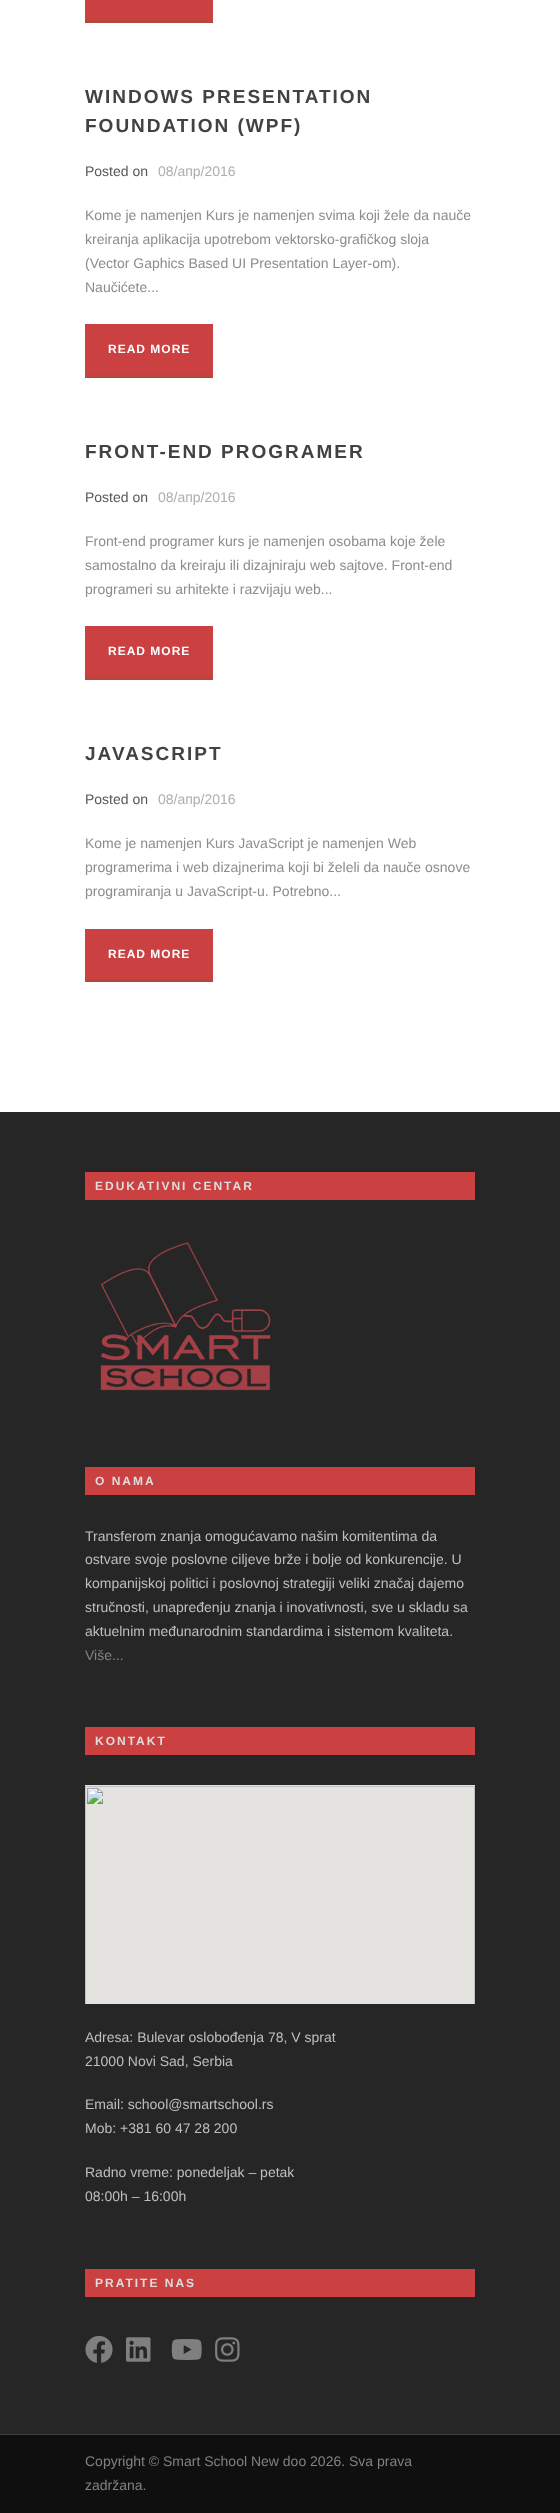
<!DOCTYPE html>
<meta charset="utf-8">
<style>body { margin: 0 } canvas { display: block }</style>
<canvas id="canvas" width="560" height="2513"></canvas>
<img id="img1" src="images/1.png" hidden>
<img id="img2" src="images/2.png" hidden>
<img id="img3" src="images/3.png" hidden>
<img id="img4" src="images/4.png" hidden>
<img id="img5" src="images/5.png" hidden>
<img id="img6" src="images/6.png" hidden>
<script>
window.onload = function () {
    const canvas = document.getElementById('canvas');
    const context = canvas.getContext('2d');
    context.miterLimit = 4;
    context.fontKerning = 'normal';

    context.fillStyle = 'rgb(255, 255, 255)';
    context.fillRect(0, 0, 560, 2513);
    context.fillStyle = 'rgb(203, 64, 64)';
    context.fillRect(85, 0, 128, 20);
    context.fillStyle = 'rgb(178, 73, 57)';
    context.fillRect(85, 20, 128, 3);
    context.fillStyle = 'rgb(203, 64, 64)';
    context.fillRect(85, 324, 128, 51);
    context.fillStyle = 'rgb(178, 73, 57)';
    context.fillRect(85, 375, 128, 3);
    context.fillStyle = 'rgb(203, 64, 64)';
    context.fillRect(85, 626, 128, 51);
    context.fillStyle = 'rgb(178, 73, 57)';
    context.fillRect(85, 677, 128, 3);
    context.fillStyle = 'rgb(203, 64, 64)';
    context.fillRect(85, 929, 128, 50);
    context.fillStyle = 'rgb(178, 73, 57)';
    context.fillRect(85, 979, 128, 3);
    context.fillStyle = 'rgb(38, 38, 38)';
    context.fillRect(0, 1112, 560, 1322);
    context.fillStyle = 'rgb(203, 64, 64)';
    context.fillRect(85, 1172, 390, 28);
    context.drawImage(document.getElementById('img1'), 100, 1242, 171, 149);
    context.fillRect(85, 1467, 390, 28);
    context.fillRect(85, 1727, 390, 28);
    context.drawImage(document.getElementById('img2'), 85, 1785, 390, 219);
    context.fillRect(85, 2269, 390, 28);
    context.drawImage(document.getElementById('img3'), 85, 2336, 28, 27);
    context.drawImage(document.getElementById('img4'), 126, 2337, 25, 25);
    context.drawImage(document.getElementById('img5'), 171, 2339, 31, 21);
    context.drawImage(document.getElementById('img6'), 215, 2337, 25, 25);
    context.fillStyle = 'rgb(15, 15, 15)';
    context.fillRect(0, 2435, 560, 78);
    context.fillStyle = 'rgb(63, 63, 63)';
    context.fillRect(0, 2434, 560, 1);
    context.letterSpacing = '2px';
    context.font = 'bold 19px Liberation Sans';
    context.fillStyle = 'rgb(66, 66, 66)';
    context.fillText('WINDOWS PRESENTATION', 85, 103);
    context.fillText('FOUNDATION (WPF)', 85, 132);
    context.letterSpacing = '0px';
    context.font = '14px Liberation Sans';
    context.fillStyle = 'rgb(87, 87, 87)';
    context.fillText('Posted on', 85, 176);
    context.fillStyle = 'rgb(174, 174, 174)';
    context.fillText('08/апр/2016', 158, 176);
    context.fillStyle = 'rgb(140, 140, 140)';
    context.fillText('Kome je namenjen Kurs je namenjen svima koji žele da nauče', 85, 220);
    context.fillText('kreiranja aplikacija upotrebom vektorsko-grafičkog sloja', 85, 244);
    context.fillText('(Vector Gaphics Based UI Presentation Layer-om).', 85, 268);
    context.fillText('Naučićete...', 85, 292);
    context.letterSpacing = '1px';
    context.font = 'bold 12px Liberation Sans';
    context.fillStyle = 'rgb(255, 255, 255)';
    context.fillText('READ MORE', 108, 353);
    context.letterSpacing = '2px';
    context.font = 'bold 19px Liberation Sans';
    context.fillStyle = 'rgb(66, 66, 66)';
    context.fillText('FRONT-END PROGRAMER', 85, 458);
    context.letterSpacing = '0px';
    context.font = '14px Liberation Sans';
    context.fillStyle = 'rgb(87, 87, 87)';
    context.fillText('Posted on', 85, 502);
    context.fillStyle = 'rgb(174, 174, 174)';
    context.fillText('08/апр/2016', 158, 502);
    context.fillStyle = 'rgb(140, 140, 140)';
    context.fillText('Front-end programer kurs je namenjen osobama koje žele', 85, 546);
    context.fillText('samostalno da kreiraju ili dizajniraju web sajtove. Front-end', 85, 570);
    context.fillText('programeri su arhitekte i razvijaju web...', 85, 594);
    context.letterSpacing = '1px';
    context.font = 'bold 12px Liberation Sans';
    context.fillStyle = 'rgb(255, 255, 255)';
    context.fillText('READ MORE', 108, 655);
    context.letterSpacing = '2px';
    context.font = 'bold 19px Liberation Sans';
    context.fillStyle = 'rgb(66, 66, 66)';
    context.fillText('JAVASCRIPT', 85, 760);
    context.letterSpacing = '0px';
    context.font = '14px Liberation Sans';
    context.fillStyle = 'rgb(87, 87, 87)';
    context.fillText('Posted on', 85, 804);
    context.fillStyle = 'rgb(174, 174, 174)';
    context.fillText('08/апр/2016', 158, 804);
    context.fillStyle = 'rgb(140, 140, 140)';
    context.fillText('Kome je namenjen Kurs JavaScript je namenjen Web', 85, 848);
    context.fillText('programerima i web dizajnerima koji bi želeli da nauče osnove', 85, 872);
    context.fillText('programiranja u JavaScript-u. Potrebno...', 85, 896);
    context.letterSpacing = '1px';
    context.font = 'bold 12px Liberation Sans';
    context.fillStyle = 'rgb(255, 255, 255)';
    context.fillText('READ MORE', 108, 958);
    context.letterSpacing = '2px';
    context.fillStyle = 'rgb(221, 221, 221)';
    context.fillText('EDUKATIVNI CENTAR', 95, 1190);
    context.fillText('O NAMA', 95, 1485);
    context.letterSpacing = '0px';
    context.font = '14px Liberation Sans';
    context.fillStyle = 'rgb(191, 191, 191)';
    context.fillText('Transferom znanja omogućavamo našim komitentima da', 85, 1541);
    context.fillText('ostvare svoje poslovne ciljeve brže i bolje od konkurencije. U', 85, 1564);
    context.fillText('kompanijskoj politici i poslovnoj strategiji veliki značaj dajemo', 85, 1588);
    context.fillText('stručnosti, unapređenju znanja i inovativnosti, sve u skladu sa', 85, 1612);
    context.fillText('aktuelnim međunarodnim standardima i sistemom kvaliteta.', 85, 1636);
    context.fillStyle = 'rgb(130, 130, 130)';
    context.fillText('Više...', 85, 1660);
    context.letterSpacing = '2px';
    context.font = 'bold 12px Liberation Sans';
    context.fillStyle = 'rgb(221, 221, 221)';
    context.fillText('KONTAKT', 95, 1745);
    context.letterSpacing = '0px';
    context.font = '14px Liberation Sans';
    context.fillStyle = 'rgb(191, 191, 191)';
    context.fillText('Adresa: Bulevar oslobođenja 78, V sprat', 85, 2042);
    context.fillText('21000 Novi Sad, Serbia', 85, 2066);
    context.fillText('Email: school@smartschool.rs', 85, 2109);
    context.fillText('Mob: +381 60 47 28 200', 85, 2133);
    context.fillText('Radno vreme: ponedeljak – petak', 85, 2177);
    context.fillText('08:00h – 16:00h', 85, 2201);
    context.letterSpacing = '2px';
    context.font = 'bold 12px Liberation Sans';
    context.fillStyle = 'rgb(221, 221, 221)';
    context.fillText('PRATITE NAS', 95, 2287);
    context.letterSpacing = '0px';
    context.font = '14px Liberation Sans';
    context.fillStyle = 'rgb(130, 130, 130)';
    context.fillText('Copyright © Smart School New doo 2026. Sva prava', 85, 2466);
    context.fillText('zadržana.', 85, 2490);
};
</script>
